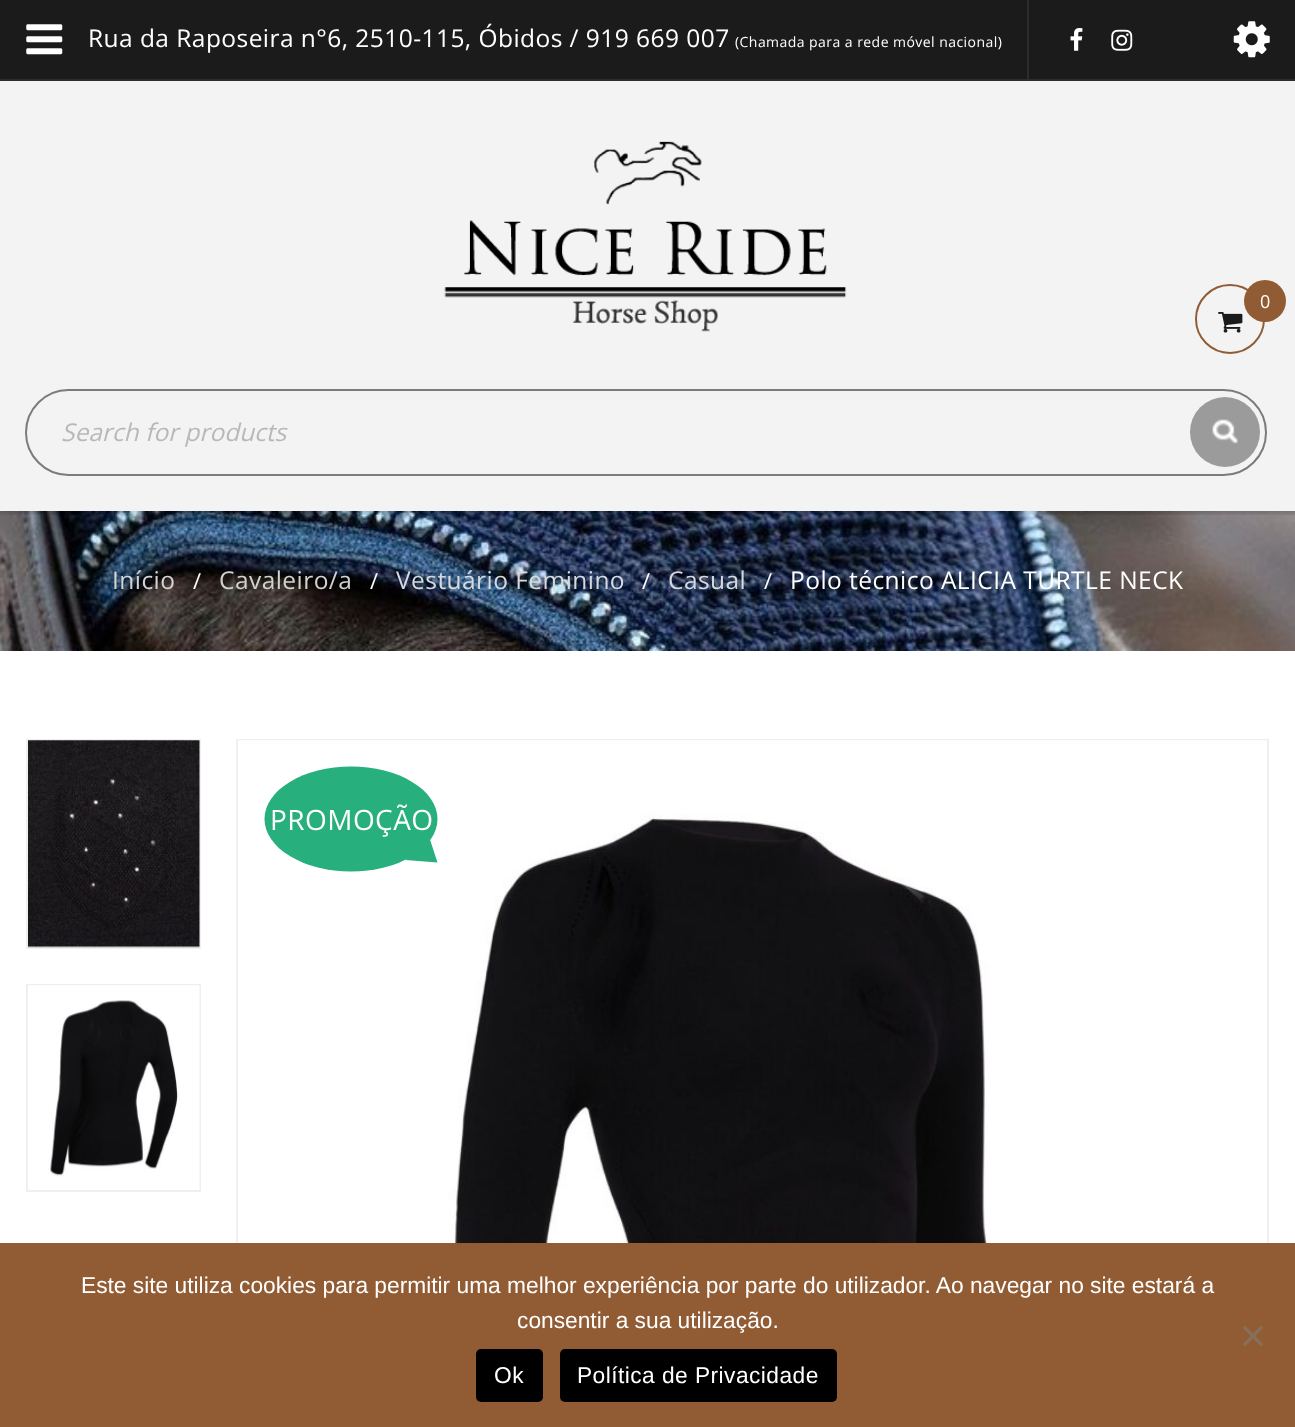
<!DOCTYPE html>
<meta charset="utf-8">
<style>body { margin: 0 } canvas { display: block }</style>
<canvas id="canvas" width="1295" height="1427"></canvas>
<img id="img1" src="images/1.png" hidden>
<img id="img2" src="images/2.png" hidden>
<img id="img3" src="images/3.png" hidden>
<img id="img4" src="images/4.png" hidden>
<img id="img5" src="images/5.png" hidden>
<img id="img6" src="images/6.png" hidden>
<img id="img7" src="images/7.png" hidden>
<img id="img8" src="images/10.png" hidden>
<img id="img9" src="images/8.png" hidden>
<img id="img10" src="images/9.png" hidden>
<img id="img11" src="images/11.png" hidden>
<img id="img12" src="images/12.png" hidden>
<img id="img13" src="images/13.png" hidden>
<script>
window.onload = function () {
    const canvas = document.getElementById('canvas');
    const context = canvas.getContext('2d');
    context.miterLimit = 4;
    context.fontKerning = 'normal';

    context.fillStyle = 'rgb(255, 255, 255)';
    context.fillRect(0, 0, 1295, 1427);
    context.fillStyle = 'rgb(27, 27, 27)';
    context.fillRect(0, 0, 1295, 79);
    context.fillStyle = 'rgb(44, 44, 44)';
    context.fillRect(0, 79, 1295, 2);
    context.drawImage(document.getElementById('img1'), 26, 24, 37, 31);
    context.fillRect(1027, 0, 2, 81);
    context.drawImage(document.getElementById('img2'), 1070, 28, 13, 23);
    context.drawImage(document.getElementById('img3'), 1111, 29, 22, 22);
    context.drawImage(document.getElementById('img4'), 1233, 21, 37, 37);
    context.fillStyle = 'rgb(243, 243, 243)';
    context.fillRect(0, 81, 1295, 430);
    context.drawImage(document.getElementById('img5'), 444, 141, 403, 191);
    context.beginPath();
    context.arc(1230, 319, 34, 0, 2 * Math.PI);
    context.strokeStyle = 'rgb(145, 92, 52)';
    context.lineWidth = 2;
    context.stroke();
    context.drawImage(document.getElementById('img6'), 1218, 312, 25, 21);
    context.fillStyle = 'rgb(145, 92, 52)';
    context.beginPath();
    context.arc(1265, 301, 21, 0, 2 * Math.PI);
    context.fill();
    context.beginPath();
    context.roundRect(26, 390, 1240, 85, 42.5);
    context.strokeStyle = 'rgb(123, 123, 123)';
    context.stroke();
    context.fillStyle = 'rgb(155, 155, 155)';
    context.beginPath();
    context.arc(1225, 432, 35, 0, 2 * Math.PI);
    context.fill();
    context.drawImage(document.getElementById('img7'), 1212, 419, 26, 25);
    context.drawImage(document.getElementById('img8'), 0, 511, 1295, 140);
    context.drawImage(document.getElementById('img9'), 0, 511, 1295, 4);
    context.drawImage(document.getElementById('img10'), 0, 511, 1295, 4);
    context.strokeStyle = 'rgb(239, 239, 239)';
    context.strokeRect(27, 740, 173, 208);
    context.drawImage(document.getElementById('img11'), 28, 740, 172, 208);
    context.strokeRect(27, 985, 173, 206);
    context.drawImage(document.getElementById('img12'), 28, 985, 172, 205);
    context.strokeRect(237, 740, 1031, 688);
    context.drawImage(document.getElementById('img13'), 238, 740, 1029, 503);
    context.fillStyle = 'rgb(39, 175, 125)';
    context.beginPath();
    context.ellipse(351, 819, 86.5, 52.5, 0, 0, 2 * Math.PI);
    context.fill();
    context.fillStyle = 'rgb(145, 92, 52)';
    context.fillRect(0, 1243, 1295, 184);
    context.fillStyle = 'rgb(137, 110, 90)';
    context.beginPath();
    context.moveTo(1261, 1325.5);
    context.lineTo(1263.5, 1328);
    context.lineTo(1245, 1346.5);
    context.lineTo(1242.5, 1344);
    context.closePath();
    context.fill();
    context.beginPath();
    context.moveTo(1242.5, 1328);
    context.lineTo(1245, 1325.5);
    context.lineTo(1263.5, 1344);
    context.lineTo(1261, 1346.5);
    context.closePath();
    context.fill();
    context.fillStyle = 'rgb(0, 0, 0)';
    context.beginPath();
    context.roundRect(476, 1349, 67, 53, 5);
    context.fill();
    context.beginPath();
    context.roundRect(560, 1349, 277, 53, 5);
    context.fill();
    context.letterSpacing = '0.45px';
    context.font = '24.5px Open Sans';
    context.fillStyle = 'rgb(255, 255, 255)';
    context.fillText('Rua da Raposeira n°6, 2510-115, Óbidos / 919 669 007', 88, 47);
    context.font = '14px Open Sans';
    context.fillText('(Chamada para a rede móvel nacional)', 735, 47);
    context.font = '18px Open Sans';
    context.fillText('0', 1260, 308);
    context.letterSpacing = '0px';
    context.font = 'italic 24.5px Open Sans';
    context.fillStyle = 'rgb(184, 184, 184)';
    context.fillText('Search for products', 61, 441);
    context.letterSpacing = '0.45px';
    context.font = '24.5px Open Sans';
    context.fillStyle = 'rgb(210, 212, 214)';
    context.fillText('Início', 112, 589);
    context.font = '22px Open Sans';
    context.fillStyle = 'rgb(255, 255, 255)';
    context.fillText('/', 193, 589);
    context.font = '24.5px Open Sans';
    context.fillStyle = 'rgb(210, 209, 208)';
    context.fillText('Cavaleiro/a', 219, 589);
    context.font = '22px Open Sans';
    context.fillStyle = 'rgb(255, 255, 255)';
    context.fillText('/', 370, 589);
    context.font = '24.5px Open Sans';
    context.fillStyle = 'rgb(214, 218, 223)';
    context.fillText('Vestuário Feminino', 396, 589);
    context.font = '22px Open Sans';
    context.fillStyle = 'rgb(255, 255, 255)';
    context.fillText('/', 642, 589);
    context.font = '24.5px Open Sans';
    context.fillStyle = 'rgb(214, 218, 223)';
    context.fillText('Casual', 668, 589);
    context.font = '22px Open Sans';
    context.fillStyle = 'rgb(255, 255, 255)';
    context.fillText('/', 764, 589);
    context.font = '24.5px Open Sans';
    context.fillText('Polo técnico ALICIA TURTLE NECK', 790, 589);
    context.font = '28px Open Sans';
    context.fillText('PROMOÇÃO', 270, 830);
    context.fillStyle = 'rgb(39, 175, 125)';
    context.beginPath();
    context.moveTo(405.5, 860);
    context.lineTo(429, 836.5);
    context.lineTo(437.5, 862.5);
    context.closePath();
    context.fill();
    context.letterSpacing = '0px';
    context.font = '22.75px Liberation Sans';
    context.fillStyle = 'rgb(255, 255, 255)';
    context.fillText('Este site utiliza cookies para permitir uma melhor experiência por parte do utilizador. Ao navegar no site estará a', 81, 1293);
    context.fillText('consentir a sua utilização.', 517, 1328);
    context.letterSpacing = '0.45px';
    context.fillText('Ok', 494, 1383);
    context.fillText('Política de Privacidade', 577, 1383);
};
</script>
